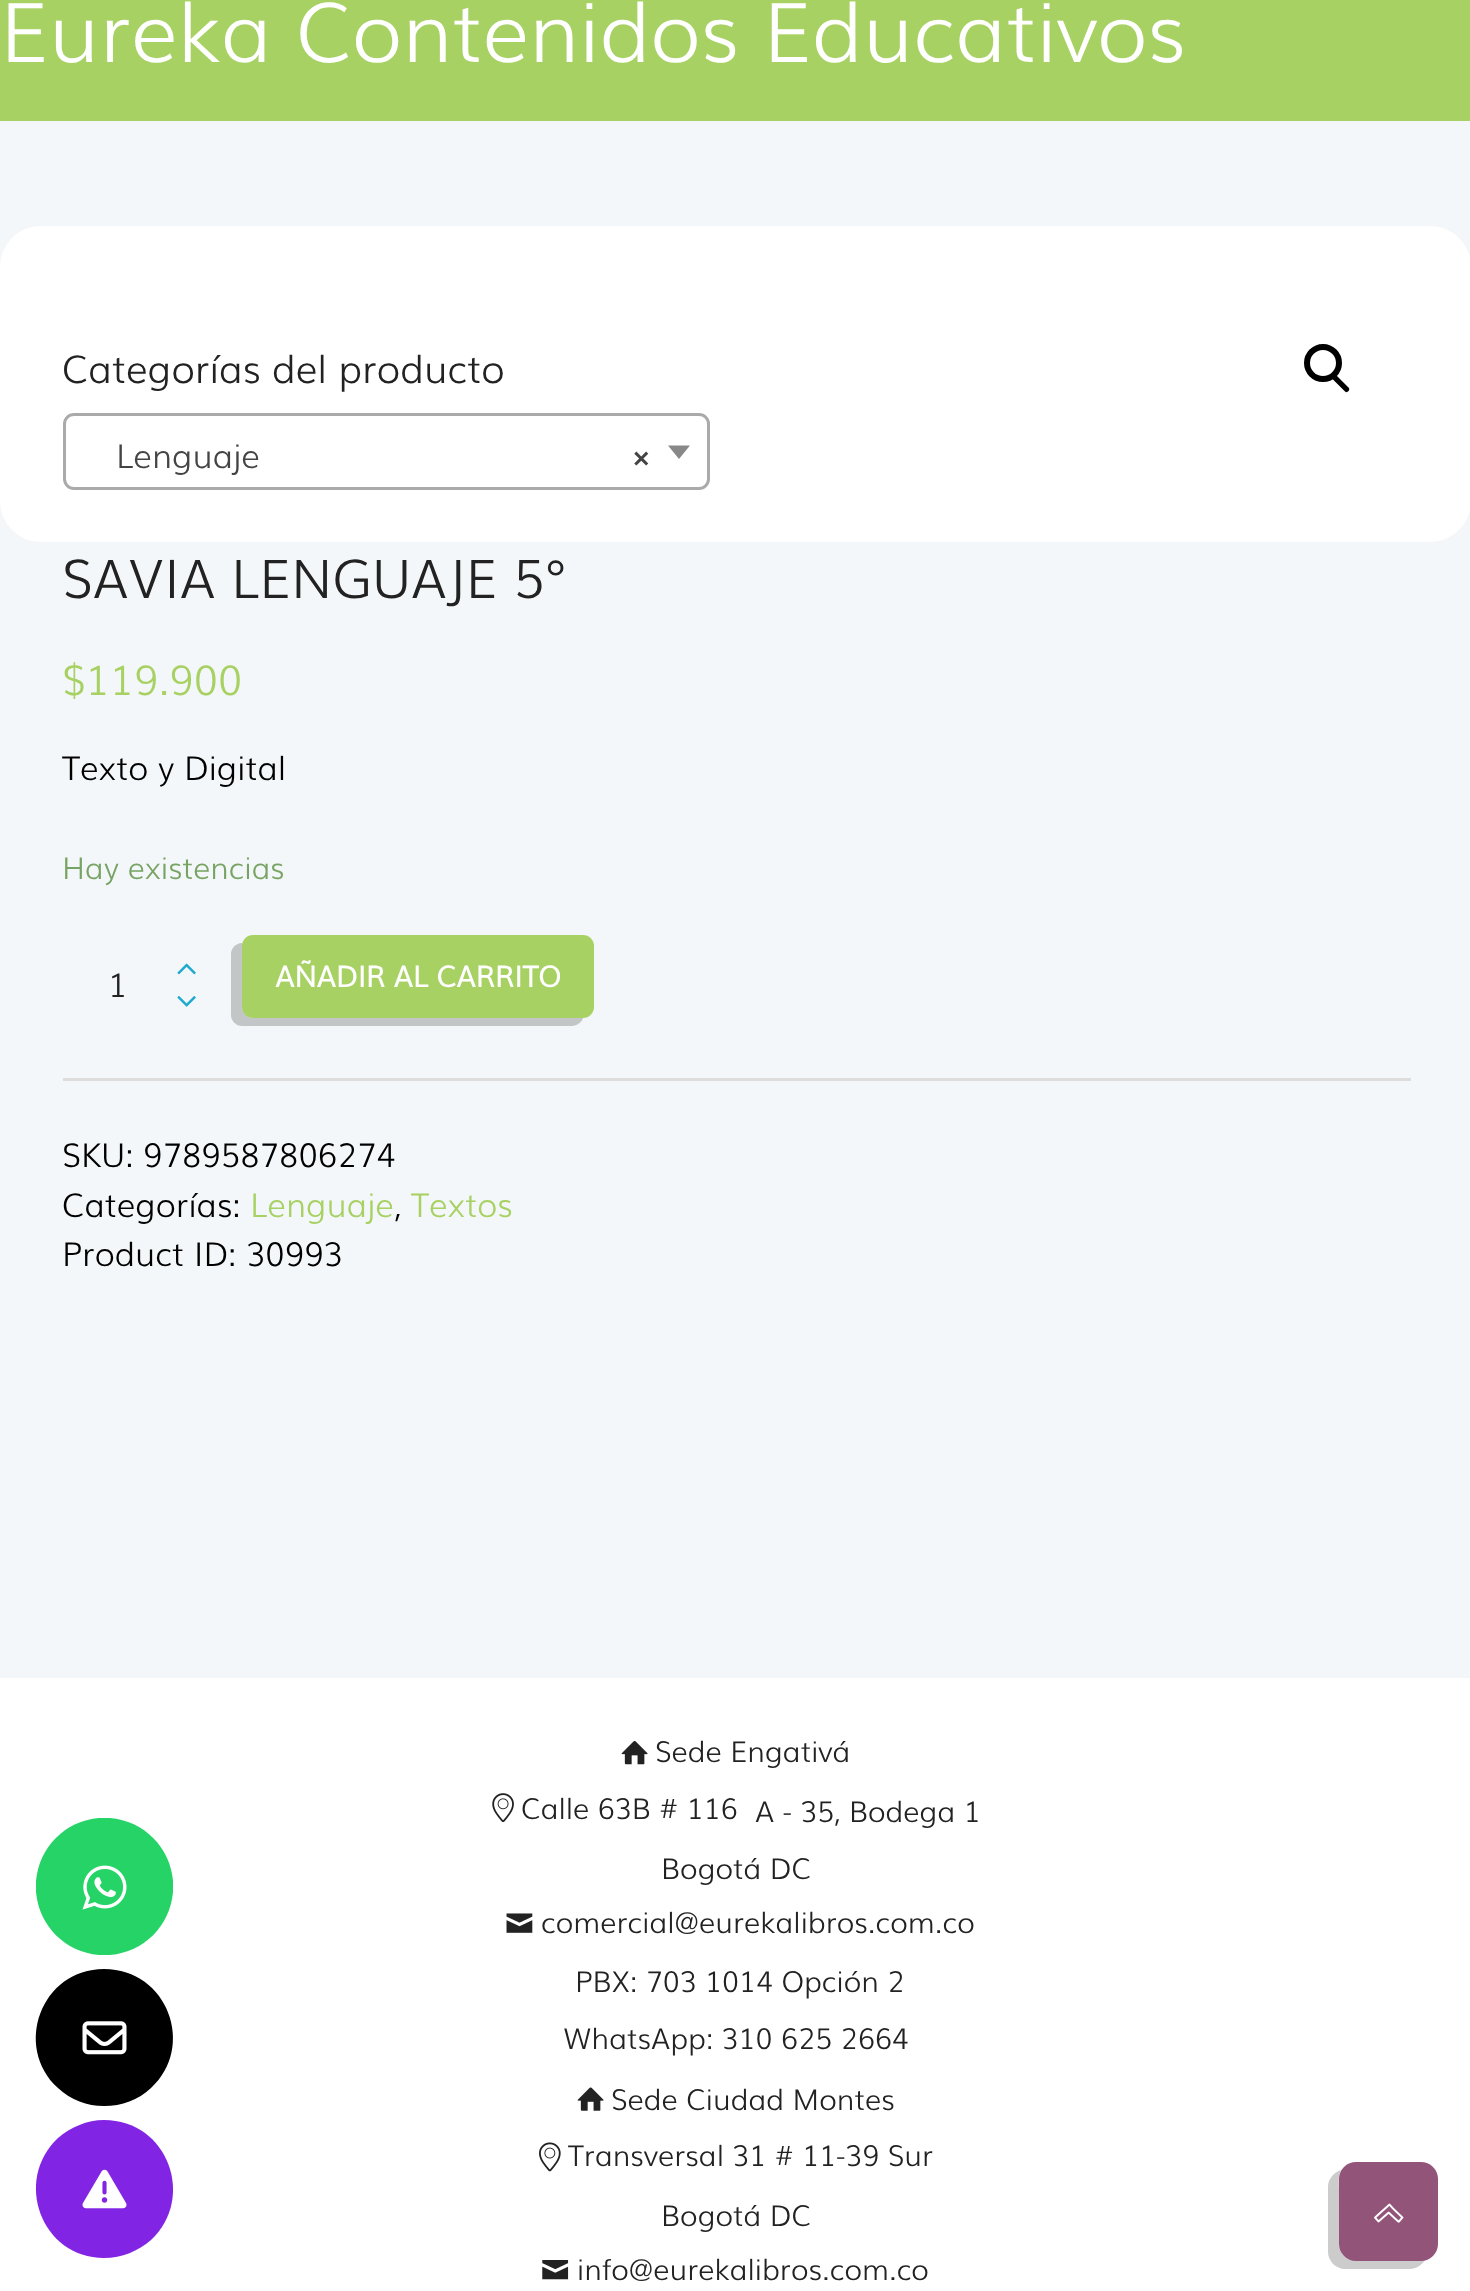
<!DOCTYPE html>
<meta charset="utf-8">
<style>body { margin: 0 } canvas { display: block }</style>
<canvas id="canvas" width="1470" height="2291"></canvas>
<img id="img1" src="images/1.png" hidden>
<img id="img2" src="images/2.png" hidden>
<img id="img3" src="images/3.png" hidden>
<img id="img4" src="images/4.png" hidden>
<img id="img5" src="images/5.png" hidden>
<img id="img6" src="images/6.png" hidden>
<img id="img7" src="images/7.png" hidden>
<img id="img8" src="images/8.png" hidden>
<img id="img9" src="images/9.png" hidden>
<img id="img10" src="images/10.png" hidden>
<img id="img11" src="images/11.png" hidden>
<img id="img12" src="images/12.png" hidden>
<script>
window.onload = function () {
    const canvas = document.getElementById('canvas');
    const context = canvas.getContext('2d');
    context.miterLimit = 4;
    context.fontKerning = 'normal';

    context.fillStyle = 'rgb(244, 247, 249)';
    context.fillRect(0, 0, 1470, 2291);
    context.fillStyle = 'rgb(167, 209, 99)';
    context.fillRect(0, 0, 1470, 121);
    context.fillStyle = 'rgb(255, 255, 255)';
    context.beginPath();
    context.roundRect(0, 226, 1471, 189, 41);
    context.fill();
    context.beginPath();
    context.roundRect(0, 281, 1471, 261, 41);
    context.fill();
    context.beginPath();
    context.roundRect(64.5, 414.5, 644, 74, 9.5);
    context.strokeStyle = 'rgb(170, 170, 170)';
    context.lineWidth = 3;
    context.stroke();
    context.fillStyle = 'rgb(136, 136, 136)';
    context.beginPath();
    context.moveTo(668, 445.5);
    context.lineTo(690, 445.5);
    context.lineTo(679, 459);
    context.closePath();
    context.fill();
    context.beginPath();
    context.arc(1323, 363, 16, 0, 2 * Math.PI);
    context.strokeStyle = 'rgb(0, 0, 0)';
    context.lineWidth = 6;
    context.stroke();
    context.fillStyle = 'rgb(0, 0, 0)';
    context.beginPath();
    context.moveTo(1333, 375.5);
    context.bezierCurveTo(1334, 374.5, 1335.5, 374.5, 1336.5, 375.5);
    context.lineTo(1348.5, 387.5);
    context.bezierCurveTo(1349.5, 388.5, 1349.5, 390, 1348.5, 391);
    context.bezierCurveTo(1347.5, 392.5, 1345.5, 392.5, 1344.5, 391);
    context.lineTo(1333, 379.5);
    context.bezierCurveTo(1332, 378.5, 1332, 376.5, 1333, 375.5);
    context.closePath();
    context.fill();
    context.fillStyle = 'rgb(221, 221, 221)';
    context.fillRect(63, 1078, 1348, 3);
    context.drawImage(document.getElementById('img1'), 177, 963, 19, 12);
    context.drawImage(document.getElementById('img2'), 177, 996, 19, 11);
    context.fillStyle = 'rgb(195, 198, 199)';
    context.beginPath();
    context.moveTo(242, 943);
    context.bezierCurveTo(236, 943, 231, 948, 231, 954);
    context.lineTo(231, 1015);
    context.bezierCurveTo(231, 1021, 236, 1026, 242, 1026);
    context.lineTo(572, 1026);
    context.bezierCurveTo(577, 1026, 582, 1022, 583, 1018);
    context.lineTo(253, 1018);
    context.bezierCurveTo(247, 1018, 242, 1013, 242, 1006);
    context.lineTo(242, 946);
    context.closePath();
    context.fill();
    context.fillStyle = 'rgb(167, 209, 99)';
    context.beginPath();
    context.roundRect(242, 935, 352, 83, 11);
    context.fill();
    context.fillStyle = 'rgb(255, 255, 255)';
    context.fillRect(0, 1678, 1470, 613);
    context.drawImage(document.getElementById('img3'), 621, 1741, 27, 24);
    context.drawImage(document.getElementById('img4'), 492, 1793, 22, 30);
    context.drawImage(document.getElementById('img5'), 506, 1913, 27, 20);
    context.drawImage(document.getElementById('img6'), 577, 2087, 27, 24);
    context.drawImage(document.getElementById('img7'), 539, 2142, 22, 30);
    context.drawImage(document.getElementById('img8'), 542, 2260, 27, 20);
    context.fillStyle = 'rgb(37, 211, 102)';
    context.beginPath();
    context.moveTo(36, 1881);
    context.bezierCurveTo(39, 1847, 65, 1821, 99, 1818);
    context.lineTo(110, 1818);
    context.bezierCurveTo(144, 1821, 170, 1847, 173, 1881);
    context.lineTo(173, 1892);
    context.bezierCurveTo(170, 1926, 144, 1952, 110, 1955);
    context.lineTo(99, 1955);
    context.bezierCurveTo(65, 1952, 39, 1926, 36, 1892);
    context.closePath();
    context.fill();
    context.drawImage(document.getElementById('img9'), 82, 1865, 45, 45);
    context.fillStyle = 'rgb(0, 0, 0)';
    context.beginPath();
    context.moveTo(104, 1969);
    context.bezierCurveTo(41, 1969, 13, 2047, 58, 2088);
    context.bezierCurveTo(71, 2100, 87, 2106, 104, 2106);
    context.bezierCurveTo(122, 2106, 138, 2100, 151, 2088);
    context.bezierCurveTo(196, 2047, 168, 1969, 104, 1969);
    context.closePath();
    context.fill();
    context.drawImage(document.getElementById('img10'), 82, 2021, 45, 34);
    context.fillStyle = 'rgb(130, 36, 227)';
    context.beginPath();
    context.moveTo(104, 2120);
    context.bezierCurveTo(168, 2120, 196, 2198, 151, 2240);
    context.bezierCurveTo(138, 2251, 122, 2258, 104, 2258);
    context.bezierCurveTo(41, 2258, 13, 2180, 58, 2138);
    context.bezierCurveTo(71, 2127, 87, 2120, 104, 2120);
    context.closePath();
    context.fill();
    context.drawImage(document.getElementById('img11'), 82, 2169, 45, 40);
    context.fillStyle = 'rgb(204, 204, 204)';
    context.beginPath();
    context.moveTo(1341, 2170);
    context.bezierCurveTo(1334, 2172, 1328, 2179, 1328, 2187);
    context.lineTo(1328, 2252);
    context.bezierCurveTo(1328, 2261, 1336, 2269, 1345, 2269);
    context.lineTo(1410, 2269);
    context.bezierCurveTo(1416, 2269, 1422, 2265, 1425, 2260);
    context.lineTo(1352, 2260);
    context.bezierCurveTo(1338, 2257, 1339, 2244, 1339, 2233);
    context.lineTo(1339, 2189);
    context.bezierCurveTo(1339, 2183, 1338, 2176, 1341, 2170);
    context.closePath();
    context.fill();
    context.fillStyle = 'rgb(147, 84, 121)';
    context.beginPath();
    context.roundRect(1339, 2162, 99, 99, 17);
    context.fill();
    context.drawImage(document.getElementById('img12'), 1374, 2203, 30, 20);
    context.font = '300 82.5px Muli';
    context.fillStyle = 'rgb(255, 255, 255)';
    context.fillText('Eureka Contenidos Educativos', 0, 62);
    context.font = '300 38.5px Muli';
    context.fillStyle = 'rgb(34, 34, 34)';
    context.fillText('Categorías del producto', 62, 383);
    context.font = '300 33px Muli';
    context.fillStyle = 'rgb(68, 68, 68)';
    context.fillText('Lenguaje', 116, 468);
    context.font = 'bold 33px Muli';
    context.fillText('×', 631, 468);
    context.font = '300 53.6px Muli';
    context.fillStyle = 'rgb(34, 34, 34)';
    context.fillText('SAVIA LENGUAJE 5°', 62, 598);
    context.font = '300 41.25px Muli';
    context.fillStyle = 'rgb(167, 209, 99)';
    context.fillText('$119.900', 62, 695);
    context.font = '300 33px Muli';
    context.fillStyle = 'rgb(0, 0, 0)';
    context.fillText('Texto y Digital', 62, 780);
    context.font = '300 30.25px Muli';
    context.fillStyle = 'rgb(119, 164, 100)';
    context.fillText('Hay existencias', 62, 879);
    context.font = '300 33px Muli';
    context.fillStyle = 'rgb(34, 34, 34)';
    context.fillText('1', 108, 997);
    context.font = 'bold 28.9px Muli';
    context.fillStyle = 'rgb(255, 255, 255)';
    context.fillText('AÑADIR AL CARRITO', 275, 987);
    context.font = '300 33px Muli';
    context.fillStyle = 'rgb(0, 0, 0)';
    context.fillText('SKU: 9789587806274', 62, 1167);
    context.fillText('Categorías:', 62, 1217);
    context.fillStyle = 'rgb(167, 209, 99)';
    context.fillText('Lenguaje', 250, 1217);
    context.fillStyle = 'rgb(0, 0, 0)';
    context.fillText(',', 394, 1217);
    context.fillStyle = 'rgb(167, 209, 99)';
    context.fillText('Textos', 411, 1217);
    context.fillStyle = 'rgb(0, 0, 0)';
    context.fillText('Product ID: 30993', 62, 1266);
    context.font = '300 28.9px Muli';
    context.fillStyle = 'rgb(34, 34, 34)';
    context.fillText('Sede Engativá', 655, 1762);
    context.fillText('Calle 63B # 116', 521, 1819);
    context.fillText('A - 35, Bodega 1', 755, 1822);
    context.fillText('Bogotá DC', 661, 1879);
    context.fillText('comercial@eurekalibros.com.co', 541, 1933);
    context.fillText('PBX: 703 1014 Opción 2', 575, 1992);
    context.fillText('WhatsApp: 310 625 2664', 563, 2049);
    context.fillText('Sede Ciudad Montes', 611, 2110);
    context.fillText('Transversal 31 # 11-39 Sur', 568, 2166);
    context.fillText('Bogotá DC', 661, 2226);
    context.fillText('info@eurekalibros.com.co', 577, 2280);
};
</script>
